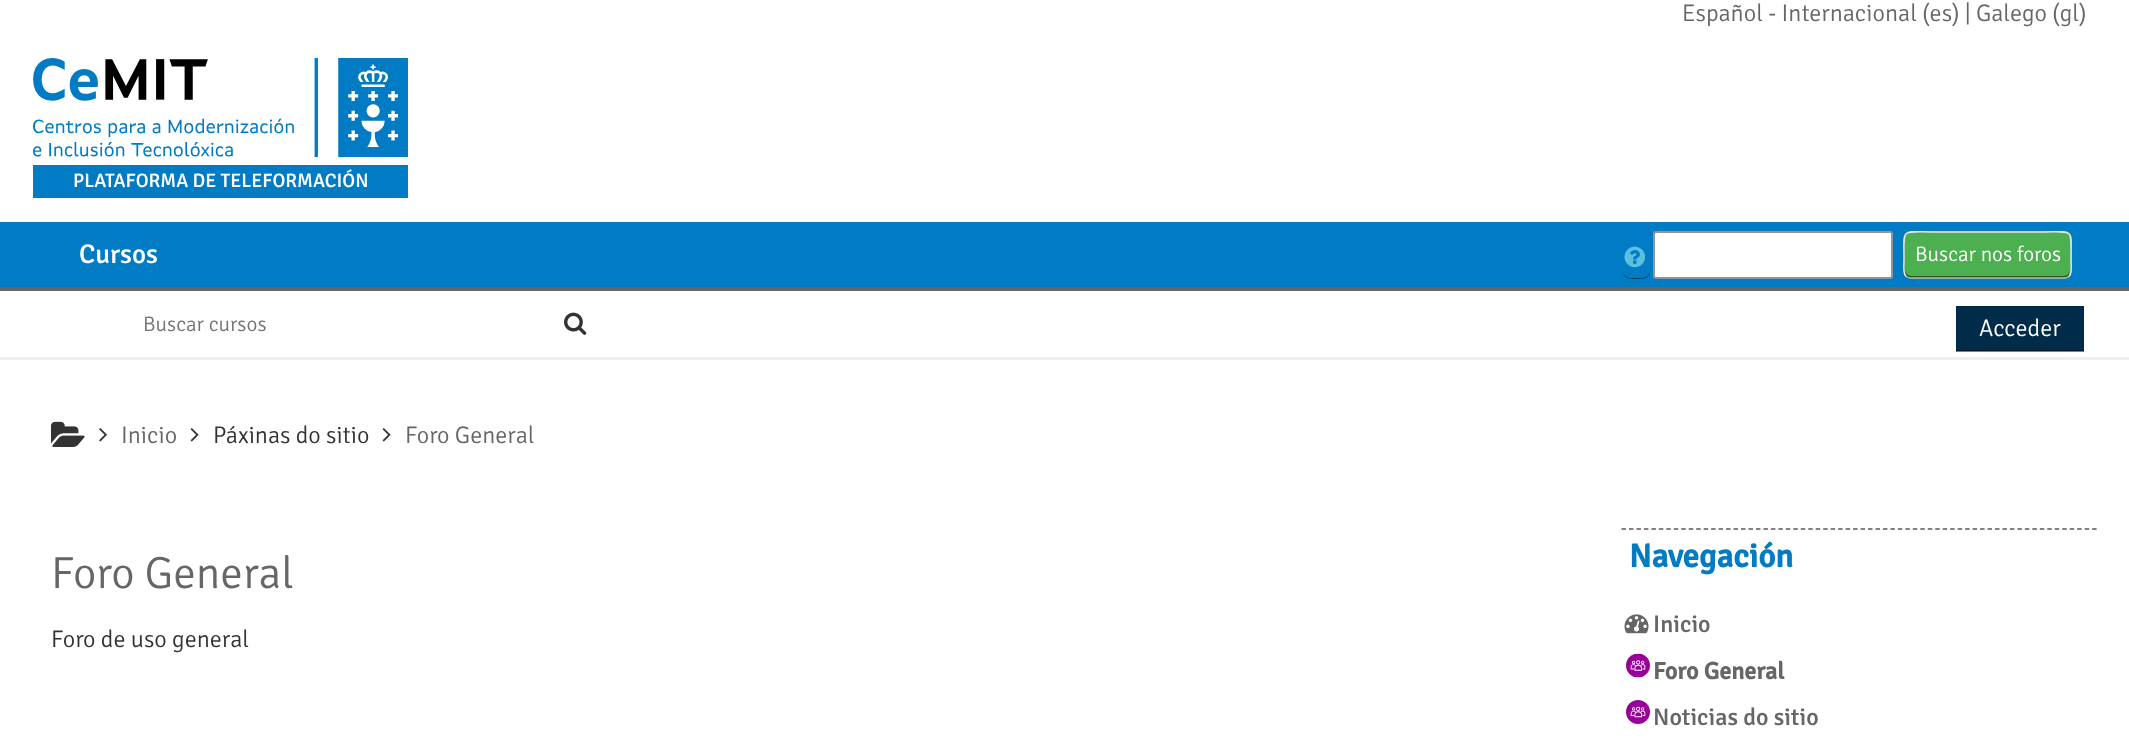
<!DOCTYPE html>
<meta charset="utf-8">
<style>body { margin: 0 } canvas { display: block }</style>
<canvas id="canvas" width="2129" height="740"></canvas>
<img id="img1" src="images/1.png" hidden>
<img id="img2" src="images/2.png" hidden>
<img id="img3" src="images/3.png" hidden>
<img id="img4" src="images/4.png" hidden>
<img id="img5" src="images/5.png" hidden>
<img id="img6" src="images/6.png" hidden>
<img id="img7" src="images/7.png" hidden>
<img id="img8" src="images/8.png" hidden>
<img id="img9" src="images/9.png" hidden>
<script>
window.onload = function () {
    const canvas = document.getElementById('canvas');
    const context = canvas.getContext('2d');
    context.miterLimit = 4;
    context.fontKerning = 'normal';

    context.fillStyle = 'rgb(255, 255, 255)';
    context.fillRect(0, 0, 2129, 740);
    context.drawImage(document.getElementById('img1'), 33, 58, 375, 99);
    context.fillStyle = 'rgb(0, 123, 196)';
    context.fillRect(33, 165, 375, 33);
    context.fillRect(0, 222, 2129, 65);
    context.fillStyle = 'rgb(102, 102, 102)';
    context.fillRect(0, 287, 2129, 4);
    context.fillStyle = 'rgb(0, 62, 98)';
    context.beginPath();
    context.moveTo(1623, 270);
    context.bezierCurveTo(1623, 279, 1629.5, 279, 1636.5, 279);
    context.bezierCurveTo(1643.5, 279, 1650, 279, 1650, 270);
    context.bezierCurveTo(1650, 274, 1647, 278, 1642, 278);
    context.lineTo(1630, 278);
    context.bezierCurveTo(1626, 278, 1623, 274, 1623, 270);
    context.closePath();
    context.fill();
    context.drawImage(document.getElementById('img2'), 1624, 246, 21, 22);
    context.fillStyle = 'rgb(255, 255, 255)';
    context.beginPath();
    context.roundRect(1654, 232, 238, 46, 2);
    context.fill();
    context.strokeStyle = 'rgb(143, 149, 158)';
    context.lineWidth = 2;
    context.stroke();
    context.fillStyle = 'rgb(76, 175, 80)';
    context.beginPath();
    context.roundRect(1904, 231, 168, 48, 8);
    context.fill();
    context.fillStyle = 'rgb(38, 88, 40)';
    context.beginPath();
    context.moveTo(1905, 270);
    context.lineTo(1905, 272);
    context.bezierCurveTo(1905, 275, 1908, 278, 1911, 278);
    context.lineTo(2064, 278);
    context.bezierCurveTo(2067, 278, 2070, 275, 2070, 272);
    context.lineTo(2070, 270);
    context.bezierCurveTo(2070, 273, 2067, 276, 2064, 276);
    context.lineTo(1911, 276);
    context.bezierCurveTo(1908, 276, 1905, 273, 1905, 270);
    context.closePath();
    context.fill();
    context.beginPath();
    context.moveTo(2069, 276.5);
    context.bezierCurveTo(2067.5, 277.5, 2066, 278, 2064, 278);
    context.lineTo(1911, 278);
    context.bezierCurveTo(1909, 278, 1907.5, 277.5, 1906, 276.5);
    context.strokeStyle = 'rgb(179, 179, 179)';
    context.lineWidth = 1.5;
    context.stroke();
    context.beginPath();
    context.moveTo(1906, 276.5);
    context.bezierCurveTo(1902.5, 272.5, 1904, 265, 1904, 260.5);
    context.bezierCurveTo(1904, 226.5, 1899.5, 232, 1936.5, 232);
    context.lineTo(2038.5, 232);
    context.bezierCurveTo(2075.5, 232, 2071, 226.5, 2071, 260.5);
    context.bezierCurveTo(2071, 265, 2072.5, 272.5, 2069, 276.5);
    context.strokeStyle = 'rgb(230, 230, 230)';
    context.stroke();
    context.fillStyle = 'rgb(128, 128, 128)';
    context.fillRect(1956, 351, 128, 1);
    context.fillStyle = 'rgb(238, 238, 238)';
    context.fillRect(0, 357, 2129, 3);
    context.drawImage(document.getElementById('img3'), 564, 312, 23, 23);
    context.fillStyle = 'rgb(0, 43, 73)';
    context.fillRect(1956, 306, 128, 44);
    context.fillStyle = 'rgb(0, 22, 37)';
    context.fillRect(1956, 350, 128, 1);
    context.drawImage(document.getElementById('img4'), 51, 421, 34, 26);
    context.drawImage(document.getElementById('img5'), 99, 428, 8, 14);
    context.drawImage(document.getElementById('img6'), 190, 428, 9, 14);
    context.drawImage(document.getElementById('img6'), 382, 428, 9, 14);
    context.beginPath();
    context.moveTo(1621.5, 529);
    context.lineTo(2097, 529);
    context.strokeStyle = 'rgb(89, 88, 93)';
    context.setLineDash([4.5, 2.97]);
    context.stroke();
    context.drawImage(document.getElementById('img7'), 1624, 614, 25, 20);
    context.drawImage(document.getElementById('img8'), 1626, 654, 24, 24);
    context.drawImage(document.getElementById('img9'), 1626, 700, 24, 24);
    context.font = '300 24px Signika';
    context.fillStyle = 'rgb(102, 102, 102)';
    context.fillText('Español - Internacional (es) | Galego (gl)', 1682, 21);
    context.font = '300 19.5px "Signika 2"';
    context.fillStyle = 'rgb(255, 255, 255)';
    context.fillText('PLATAFORMA DE TELEFORMACIÓN', 73, 187);
    context.font = '300 27px "Signika 2"';
    context.fillText('Cursos', 79, 263);
    context.font = '300 21px Signika';
    context.fillText('Buscar nos foros', 1915, 261);
    context.fillStyle = 'rgb(117, 117, 117)';
    context.fillText('Buscar cursos', 143, 331);
    context.font = '300 24px Signika';
    context.fillStyle = 'rgb(255, 255, 255)';
    context.fillText('Acceder', 1979, 336);
    context.fillStyle = 'rgb(102, 102, 102)';
    context.fillText('Inicio', 121, 443);
    context.fillStyle = 'rgb(51, 51, 51)';
    context.fillText('Páxinas do sitio', 213, 443);
    context.fillStyle = 'rgb(102, 102, 102)';
    context.fillText('Foro General', 405, 443);
    context.font = '300 45px Signika';
    context.fillText('Foro General', 51, 588);
    context.font = '300 24px Signika';
    context.fillStyle = 'rgb(51, 51, 51)';
    context.fillText('Foro de uso general', 51, 647);
    context.font = 'bold 33px Signika';
    context.fillStyle = 'rgb(0, 123, 196)';
    context.fillText('Navegación', 1629, 567);
    context.font = '300 24px "Signika 2"';
    context.fillStyle = 'rgb(102, 102, 102)';
    context.fillText('Inicio', 1653, 632);
    context.font = 'bold 24px Signika';
    context.fillText('Foro General', 1653, 679);
    context.font = '300 24px "Signika 2"';
    context.fillText('Noticias do sitio', 1653, 725);
};
</script>
